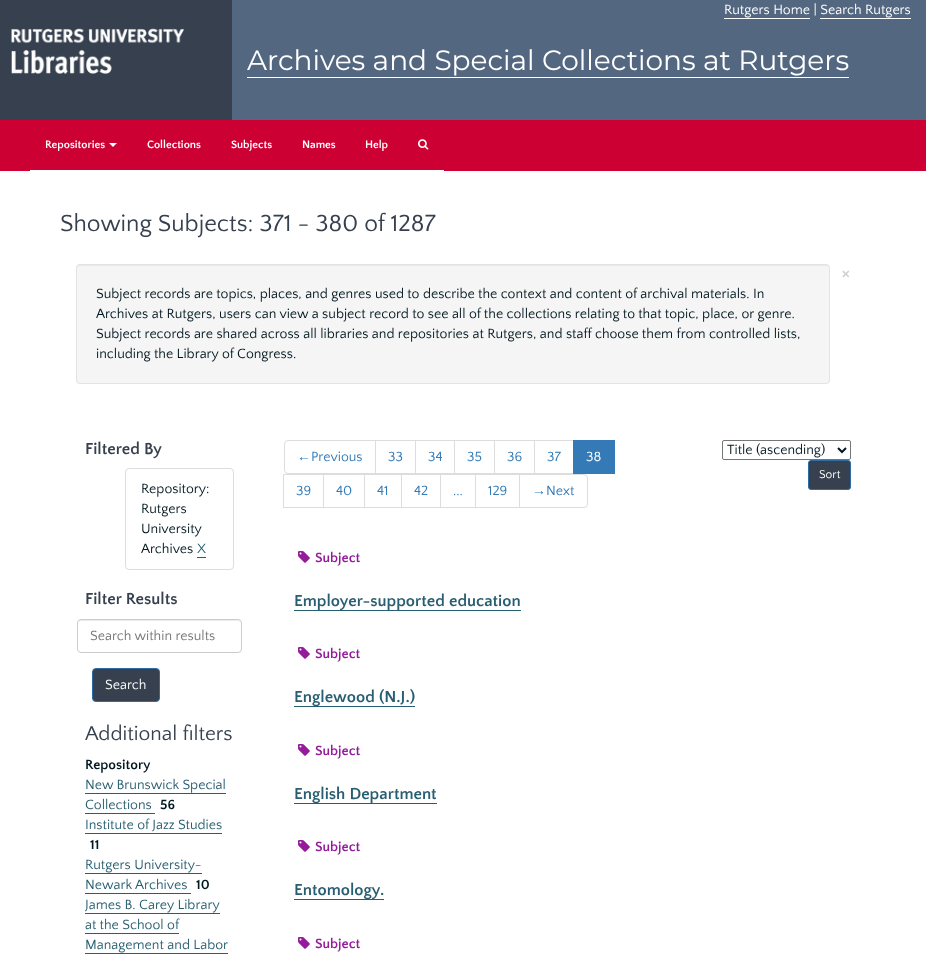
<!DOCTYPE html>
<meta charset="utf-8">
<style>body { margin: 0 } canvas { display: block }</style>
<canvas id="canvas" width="926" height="962"></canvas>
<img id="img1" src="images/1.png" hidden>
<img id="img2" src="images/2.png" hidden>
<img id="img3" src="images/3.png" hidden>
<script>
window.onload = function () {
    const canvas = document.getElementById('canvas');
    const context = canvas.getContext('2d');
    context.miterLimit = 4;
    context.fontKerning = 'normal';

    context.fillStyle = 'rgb(255, 255, 255)';
    context.fillRect(0, 0, 926, 962);
    context.fillStyle = 'rgb(84, 103, 129)';
    context.fillRect(232, 0, 694, 120);
    context.fillStyle = 'rgb(54, 64, 78)';
    context.fillRect(0, 0, 232, 120);
    context.drawImage(document.getElementById('img1'), 11, 28, 173, 46);
    context.fillStyle = 'rgb(255, 255, 255)';
    context.fillRect(724, 18, 86, 1);
    context.fillRect(820, 18, 91, 1);
    context.fillRect(247, 77, 602, 1);
    context.fillStyle = 'rgb(204, 0, 51)';
    context.fillRect(0, 120, 926, 51);
    context.fillStyle = 'rgb(255, 255, 255)';
    context.fillRect(30, 170, 414, 1);
    context.beginPath();
    context.moveTo(109, 143);
    context.lineTo(117, 143);
    context.lineTo(113, 147);
    context.closePath();
    context.fill();
    context.drawImage(document.getElementById('img2'), 418, 139, 11, 11);
    context.fillStyle = 'rgb(245, 245, 245)';
    context.beginPath();
    context.roundRect(76, 264, 754, 120, 4);
    context.fill();
    context.fillStyle = 'rgb(233, 233, 233)';
    context.beginPath();
    context.moveTo(80, 266);
    context.lineTo(826, 266);
    context.bezierCurveTo(828, 266, 829, 267, 829, 269);
    context.bezierCurveTo(829, 267, 828, 265, 826, 265);
    context.lineTo(80, 265);
    context.bezierCurveTo(78, 265, 77, 267, 77, 269);
    context.bezierCurveTo(77, 267, 78, 266, 80, 266);
    context.closePath();
    context.fill();
    context.beginPath();
    context.roundRect(76.5, 264.5, 753, 119, 3.5);
    context.strokeStyle = 'rgb(227, 227, 227)';
    context.stroke();
    context.beginPath();
    context.roundRect(125.5, 468.5, 108, 101, 3.5);
    context.strokeStyle = 'rgb(221, 221, 221)';
    context.stroke();
    context.fillStyle = 'rgb(40, 94, 113)';
    context.fillRect(197, 557, 9, 1);
    context.fillStyle = 'rgb(236, 236, 236)';
    context.beginPath();
    context.moveTo(81, 621);
    context.lineTo(238, 621);
    context.bezierCurveTo(240, 621, 241, 622, 241, 624);
    context.bezierCurveTo(241, 622, 240, 620, 238, 620);
    context.lineTo(81, 620);
    context.bezierCurveTo(79, 620, 78, 622, 78, 624);
    context.bezierCurveTo(78, 622, 79, 621, 81, 621);
    context.closePath();
    context.fill();
    context.beginPath();
    context.roundRect(77.5, 619.5, 164, 33, 3.5);
    context.strokeStyle = 'rgb(204, 204, 204)';
    context.stroke();
    context.fillStyle = 'rgb(54, 64, 78)';
    context.beginPath();
    context.roundRect(92.5, 668.5, 67, 33, 3.5);
    context.fill();
    context.strokeStyle = 'rgb(46, 109, 164)';
    context.stroke();
    context.fillStyle = 'rgb(40, 94, 113)';
    context.fillRect(85, 793, 141, 1);
    context.fillRect(85, 813, 70, 1);
    context.fillRect(85, 833, 137, 1);
    context.fillRect(85, 873, 117, 1);
    context.fillRect(85, 893, 106, 1);
    context.fillRect(85, 913, 135, 1);
    context.fillRect(85, 933, 94, 1);
    context.fillRect(85, 953, 143, 1);
    context.beginPath();
    context.roundRect(284.5, 440.5, 91, 33, [3.5, 0, 0, 3.5]);
    context.strokeStyle = 'rgb(221, 221, 221)';
    context.stroke();
    context.strokeRect(375.5, 440.5, 40, 33);
    context.strokeRect(415.5, 440.5, 39, 33);
    context.strokeRect(454.5, 440.5, 40, 33);
    context.strokeRect(494.5, 440.5, 40, 33);
    context.strokeRect(534.5, 440.5, 39, 33);
    context.fillStyle = 'rgb(51, 122, 183)';
    context.fillRect(573, 440, 42, 34);
    context.strokeRect(283.5, 474.5, 40, 33);
    context.strokeRect(323.5, 474.5, 41, 33);
    context.strokeRect(364.5, 474.5, 37, 33);
    context.strokeRect(401.5, 474.5, 39, 33);
    context.strokeRect(440.5, 474.5, 35, 33);
    context.strokeRect(475.5, 474.5, 44, 33);
    context.fillStyle = 'rgb(255, 255, 255)';
    context.beginPath();
    context.roundRect(519.5, 474.5, 68, 33, [0, 3.5, 3.5, 0]);
    context.fill();
    context.stroke();
    context.beginPath();
    context.roundRect(722.5, 440.5, 128, 19, 1.5);
    context.strokeStyle = 'rgb(118, 118, 118)';
    context.stroke();
    context.beginPath();
    context.moveTo(838, 448);
    context.lineTo(842, 452);
    context.lineTo(846, 448);
    context.strokeStyle = 'rgb(0, 23, 31)';
    context.lineWidth = 2;
    context.stroke();
    context.fillStyle = 'rgb(54, 64, 78)';
    context.beginPath();
    context.roundRect(808.5, 460.5, 42, 29, 2.5);
    context.fill();
    context.strokeStyle = 'rgb(46, 109, 164)';
    context.lineWidth = 1;
    context.stroke();
    context.drawImage(document.getElementById('img3'), 298, 551, 12, 12);
    context.fillStyle = 'rgb(40, 94, 113)';
    context.fillRect(294, 610, 227, 1);
    context.drawImage(document.getElementById('img3'), 298, 647, 12, 12);
    context.fillRect(294, 706, 121, 1);
    context.drawImage(document.getElementById('img3'), 298, 744, 12, 12);
    context.fillRect(294, 803, 143, 1);
    context.drawImage(document.getElementById('img3'), 298, 840, 12, 12);
    context.fillRect(294, 899, 90, 1);
    context.drawImage(document.getElementById('img3'), 298, 937, 12, 12);
    context.font = '14px Quattrocento Sans';
    context.fillStyle = 'rgb(255, 255, 255)';
    context.fillText('Rutgers Home | Search Rutgers', 724, 14);
    context.font = '28px Montserrat';
    context.fillText('Archives and Special Collections at Rutgers', 247, 70);
    context.font = 'bold 11.25px Quattrocento Sans';
    context.fillText('Repositories', 45, 148);
    context.fillText('Collections', 147, 148);
    context.fillText('Subjects', 231, 148);
    context.fillText('Names', 302, 148);
    context.fillText('Help', 365, 148);
    context.font = '24.5px Quattrocento Sans';
    context.fillStyle = 'rgb(54, 64, 78)';
    context.fillText('Showing Subjects: 371 - 380 of 1287', 60, 231);
    context.font = 'bold 21px Quattrocento Sans';
    context.fillStyle = 'rgb(204, 209, 210)';
    context.fillText('×', 841, 279);
    context.font = '14px Quattrocento Sans';
    context.fillStyle = 'rgb(0, 23, 31)';
    context.fillText('Subject records are topics, places, and genres used to describe the context and content of archival materials. In', 96, 298);
    context.fillText('Archives at Rutgers, users can view a subject record to see all of the collections relating to that topic, place, or genre.', 96, 318);
    context.fillText('Subject records are shared across all libraries and repositories at Rutgers, and staff choose them from controlled lists,', 96, 338);
    context.fillText('including the Library of Congress.', 96, 358);
    context.font = 'bold 16.75px Quattrocento Sans';
    context.fillStyle = 'rgb(54, 64, 78)';
    context.fillText('Filtered By', 85, 454);
    context.font = '14px Quattrocento Sans';
    context.fillStyle = 'rgb(0, 23, 31)';
    context.fillText('Repository:', 141, 493);
    context.fillText('Rutgers', 141, 513);
    context.fillText('University', 141, 533);
    context.fillText('Archives', 141, 553);
    context.fillStyle = 'rgb(40, 94, 113)';
    context.fillText('X', 197, 553);
    context.font = 'bold 16.75px Quattrocento Sans';
    context.fillStyle = 'rgb(54, 64, 78)';
    context.fillText('Filter Results', 85, 604);
    context.font = '14px Quattrocento Sans';
    context.fillStyle = 'rgb(118, 118, 118)';
    context.fillText('Search within results', 90, 640);
    context.fillStyle = 'rgb(255, 255, 255)';
    context.fillText('Search', 105, 689);
    context.font = '21px Quattrocento Sans';
    context.fillStyle = 'rgb(54, 64, 78)';
    context.fillText('Additional filters', 85, 740);
    context.font = 'bold 14px Quattrocento Sans';
    context.fillStyle = 'rgb(0, 23, 31)';
    context.fillText('Repository', 85, 769);
    context.font = '14px Quattrocento Sans';
    context.fillStyle = 'rgb(40, 94, 113)';
    context.fillText('New Brunswick Special', 85, 789);
    context.fillText('Collections', 85, 809);
    context.font = 'bold 14px Quattrocento Sans';
    context.fillStyle = 'rgb(0, 23, 31)';
    context.fillText('56', 160, 809);
    context.font = '14px Quattrocento Sans';
    context.fillStyle = 'rgb(40, 94, 113)';
    context.fillText('Institute of Jazz Studies', 85, 829);
    context.font = 'bold 14px Quattrocento Sans';
    context.fillStyle = 'rgb(0, 23, 31)';
    context.fillText('11', 90, 849);
    context.font = '14px Quattrocento Sans';
    context.fillStyle = 'rgb(40, 94, 113)';
    context.fillText('Rutgers University-', 85, 869);
    context.fillText('Newark Archives', 85, 889);
    context.font = 'bold 14px Quattrocento Sans';
    context.fillStyle = 'rgb(0, 23, 31)';
    context.fillText('10', 196, 889);
    context.font = '14px Quattrocento Sans';
    context.fillStyle = 'rgb(40, 94, 113)';
    context.fillText('James B. Carey Library', 85, 909);
    context.fillText('at the School of', 85, 929);
    context.fillText('Management and Labor', 85, 949);
    context.font = '14px Liberation Serif';
    context.fillStyle = 'rgb(51, 122, 183)';
    context.fillText('←', 297, 461);
    context.font = '14px Quattrocento Sans';
    context.fillText('Previous', 311, 461);
    context.fillText('33', 388, 461);
    context.fillText('34', 428, 461);
    context.fillText('35', 467, 461);
    context.fillText('36', 507, 461);
    context.fillText('37', 547, 461);
    context.fillStyle = 'rgb(255, 255, 255)';
    context.fillText('38', 586, 461);
    context.fillStyle = 'rgb(51, 122, 183)';
    context.fillText('39', 296, 495);
    context.fillText('40', 336, 495);
    context.fillText('41', 377, 495);
    context.fillText('42', 414, 495);
    context.fillText('...', 453, 495);
    context.fillText('129', 488, 495);
    context.font = '14px Liberation Serif';
    context.fillText('→', 532, 495);
    context.font = '14px Quattrocento Sans';
    context.fillText('Next', 546, 495);
    context.fillStyle = 'rgb(0, 23, 31)';
    context.fillText('Title (ascending)', 727, 454);
    context.font = '12px Quattrocento Sans';
    context.fillStyle = 'rgb(255, 255, 255)';
    context.fillText('Sort', 819, 478);
    context.font = 'bold 14px Quattrocento Sans';
    context.fillStyle = 'rgb(148, 28, 154)';
    context.fillText('Subject', 315, 562);
    context.font = 'bold 16.75px Quattrocento Sans';
    context.fillStyle = 'rgb(40, 94, 113)';
    context.fillText('Employer-supported education', 294, 606);
    context.font = 'bold 14px Quattrocento Sans';
    context.fillStyle = 'rgb(148, 28, 154)';
    context.fillText('Subject', 315, 658);
    context.font = 'bold 16.75px Quattrocento Sans';
    context.fillStyle = 'rgb(40, 94, 113)';
    context.fillText('Englewood (N.J.)', 294, 702);
    context.font = 'bold 14px Quattrocento Sans';
    context.fillStyle = 'rgb(148, 28, 154)';
    context.fillText('Subject', 315, 755);
    context.font = 'bold 16.75px Quattrocento Sans';
    context.fillStyle = 'rgb(40, 94, 113)';
    context.fillText('English Department', 294, 799);
    context.font = 'bold 14px Quattrocento Sans';
    context.fillStyle = 'rgb(148, 28, 154)';
    context.fillText('Subject', 315, 851);
    context.font = 'bold 16.75px Quattrocento Sans';
    context.fillStyle = 'rgb(40, 94, 113)';
    context.fillText('Entomology.', 294, 895);
    context.font = 'bold 14px Quattrocento Sans';
    context.fillStyle = 'rgb(148, 28, 154)';
    context.fillText('Subject', 315, 948);
};
</script>
